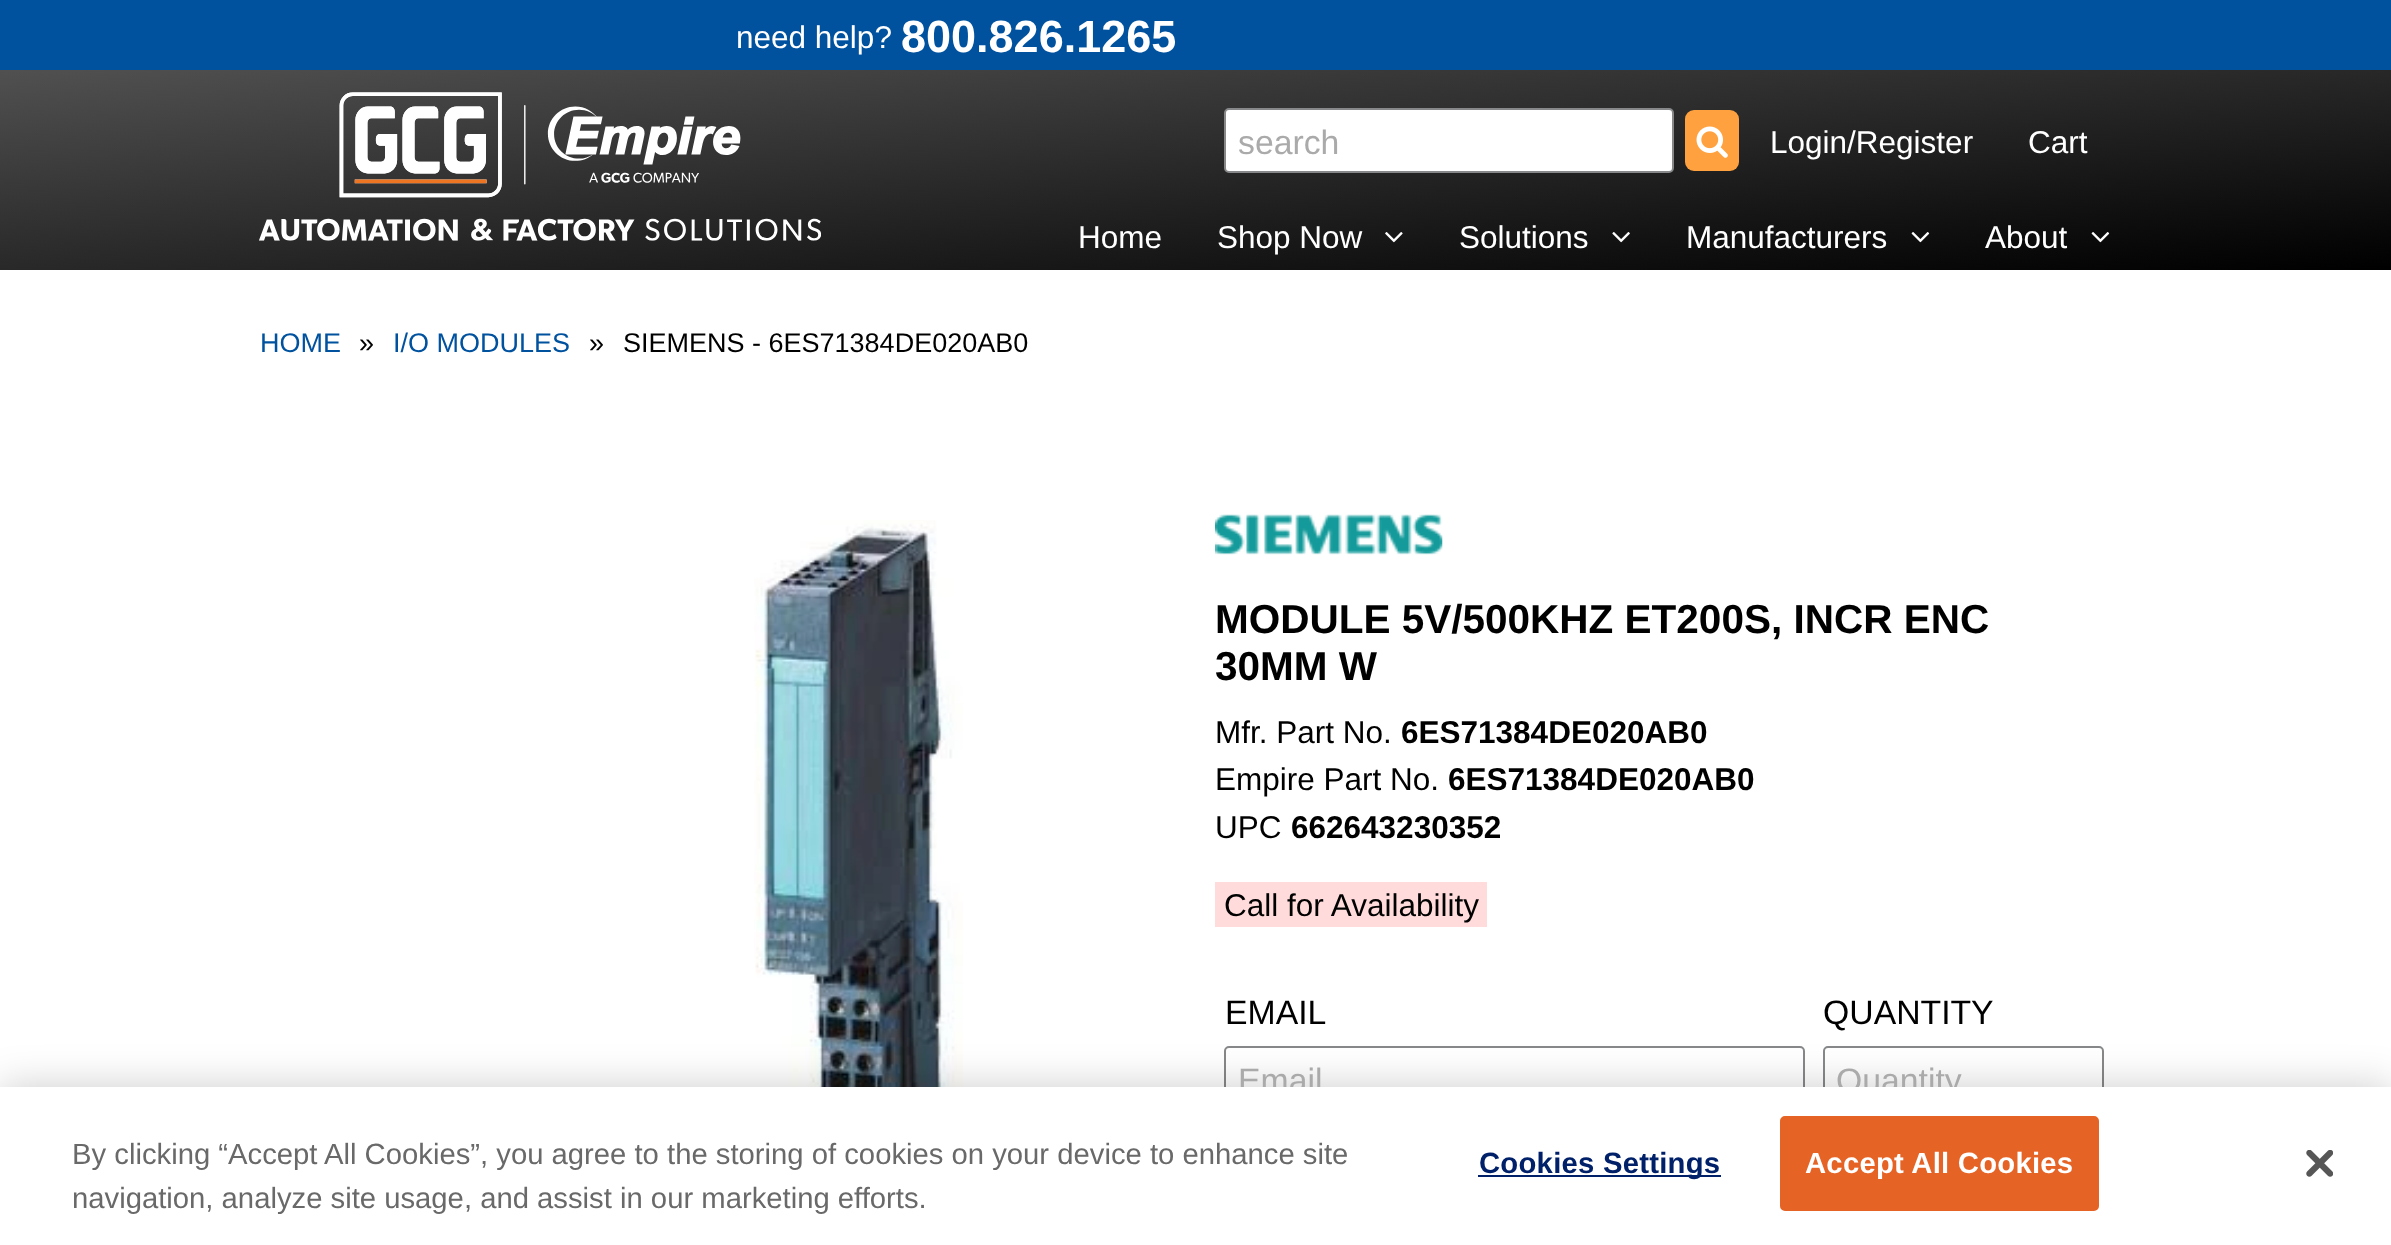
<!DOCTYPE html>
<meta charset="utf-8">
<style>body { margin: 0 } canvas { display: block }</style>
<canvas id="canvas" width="2391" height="1245"></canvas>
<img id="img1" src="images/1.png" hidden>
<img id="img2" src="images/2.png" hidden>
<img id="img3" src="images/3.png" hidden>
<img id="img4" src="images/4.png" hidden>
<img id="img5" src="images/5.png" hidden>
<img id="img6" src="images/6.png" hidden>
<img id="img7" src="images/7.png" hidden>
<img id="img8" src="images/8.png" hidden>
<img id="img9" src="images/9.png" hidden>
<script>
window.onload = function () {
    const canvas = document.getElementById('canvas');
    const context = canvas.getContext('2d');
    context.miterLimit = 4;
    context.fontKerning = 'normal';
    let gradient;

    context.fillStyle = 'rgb(255, 255, 255)';
    context.fillRect(0, 0, 2391, 1245);
    context.fillStyle = 'rgb(0, 82, 159)';
    context.fillRect(0, 0, 2391, 70);
    gradient = context.createLinearGradient(1179, -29, 1213, 369);
    gradient.addColorStop(0, 'rgb(80, 80, 80)');
    gradient.addColorStop(1, 'rgb(0, 0, 0)');
    context.fillStyle = gradient;
    context.fillRect(0, 70, 2391, 200);
    context.drawImage(document.getElementById('img1'), 259, 92, 562, 149);
    context.fillStyle = 'rgb(255, 255, 255)';
    context.beginPath();
    context.roundRect(1225, 109, 448, 63, 4);
    context.fill();
    context.strokeStyle = 'rgb(134, 136, 138)';
    context.lineWidth = 2;
    context.stroke();
    context.fillStyle = 'rgb(255, 161, 62)';
    context.beginPath();
    context.roundRect(1685, 110, 54, 61, 9);
    context.fill();
    context.drawImage(document.getElementById('img2'), 1696, 126, 32, 32);
    context.drawImage(document.getElementById('img3'), 1385, 232, 18, 11);
    context.drawImage(document.getElementById('img4'), 1612, 232, 18, 11);
    context.drawImage(document.getElementById('img5'), 1911, 232, 19, 11);
    context.drawImage(document.getElementById('img6'), 2091, 232, 19, 11);
    context.drawImage(document.getElementById('img7'), 754, 520, 209, 567);
    context.drawImage(document.getElementById('img8'), 1215, 514, 228, 41);
    context.fillStyle = 'rgb(255, 219, 219)';
    context.fillRect(1215, 882, 272, 45);
    context.beginPath();
    context.roundRect(1225, 1047, 579, 64, 4);
    context.stroke();
    context.beginPath();
    context.roundRect(1824, 1047, 279, 64, 4);
    context.stroke();
    context.fillStyle = 'rgba(0, 0, 0, 0.2)';
    context.filter = 'blur(20px)';
    context.beginPath();
    context.rect(0, 1087, 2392, 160);
    context.fill();
    context.filter = 'none';
    context.font = '31.5px Liberation Sans';
    context.fillStyle = 'rgb(255, 255, 255)';
    context.fillText('need help?', 736, 48);
    context.font = 'bold 45px Liberation Sans';
    context.fillText('800.826.1265', 901, 52);
    context.font = '33.75px Liberation Sans';
    context.fillStyle = 'rgb(170, 170, 170)';
    context.fillText('search', 1238, 154);
    context.font = '31.5px Liberation Sans';
    context.fillStyle = 'rgb(255, 255, 255)';
    context.fillText('Login/Register', 1770, 153);
    context.fillText('Cart', 2028, 153);
    context.fillText('Home', 1078, 248);
    context.fillText('Shop Now', 1217, 248);
    context.fillText('Solutions', 1459, 248);
    context.fillText('Manufacturers', 1686, 248);
    context.fillText('About', 1985, 248);
    context.font = '27px Liberation Sans';
    context.fillStyle = 'rgb(0, 82, 159)';
    context.fillText('HOME', 260, 352);
    context.fillStyle = 'rgb(0, 0, 0)';
    context.fillText('»', 359, 352);
    context.fillStyle = 'rgb(0, 82, 159)';
    context.fillText('I/O MODULES', 393, 352);
    context.fillStyle = 'rgb(0, 0, 0)';
    context.fillText('»', 589, 352);
    context.fillText('SIEMENS - 6ES71384DE020AB0', 623, 352);
    context.font = 'bold 40.5px Liberation Sans';
    context.fillText('MODULE 5V/500KHZ ET200S, INCR ENC', 1215, 633);
    context.fillText('30MM W', 1215, 680);
    context.font = '31.5px Liberation Sans';
    context.fillText('Mfr. Part No.', 1215, 743);
    context.font = 'bold 31.5px Liberation Sans';
    context.fillText('6ES71384DE020AB0', 1401, 743);
    context.font = '31.5px Liberation Sans';
    context.fillText('Empire Part No.', 1215, 790);
    context.font = 'bold 31.5px Liberation Sans';
    context.fillText('6ES71384DE020AB0', 1448, 790);
    context.font = '31.5px Liberation Sans';
    context.fillText('UPC', 1215, 838);
    context.font = 'bold 31.5px Liberation Sans';
    context.fillText('662643230352', 1291, 838);
    context.font = '31.5px Liberation Sans';
    context.fillText('Call for Availability', 1224, 916);
    context.font = '33.75px Liberation Sans';
    context.fillText('EMAIL', 1225, 1024);
    context.fillStyle = 'rgb(170, 170, 170)';
    context.fillText('Email', 1238, 1092);
    context.fillStyle = 'rgb(0, 0, 0)';
    context.fillText('QUANTITY', 1823, 1024);
    context.fillStyle = 'rgb(170, 170, 170)';
    context.fillText('Quantity', 1836, 1092);
    context.fillStyle = 'rgb(255, 255, 255)';
    context.fillRect(0, 1087, 2391, 158);
    context.font = '29.25px Liberation Sans';
    context.fillStyle = 'rgb(105, 105, 105)';
    context.fillText('By clicking “Accept All Cookies”, you agree to the storing of cookies on your device to enhance site', 72, 1164);
    context.fillText('navigation, analyze site usage, and assist in our marketing efforts.', 72, 1208);
    context.fillStyle = 'rgb(0, 33, 105)';
    context.fillRect(1478, 1175, 243, 2);
    context.letterSpacing = '0.25px';
    context.font = 'bold 29.25px Liberation Sans';
    context.fillText('Cookies Settings', 1479, 1173);
    context.fillStyle = 'rgb(229, 99, 37)';
    context.beginPath();
    context.roundRect(1781, 1117, 317, 93, 4);
    context.fill();
    context.strokeStyle = 'rgb(229, 99, 37)';
    context.stroke();
    context.fillStyle = 'rgb(255, 255, 255)';
    context.fillText('Accept All Cookies', 1805, 1173);
    context.drawImage(document.getElementById('img9'), 2306, 1150, 27, 27);
};
</script>
